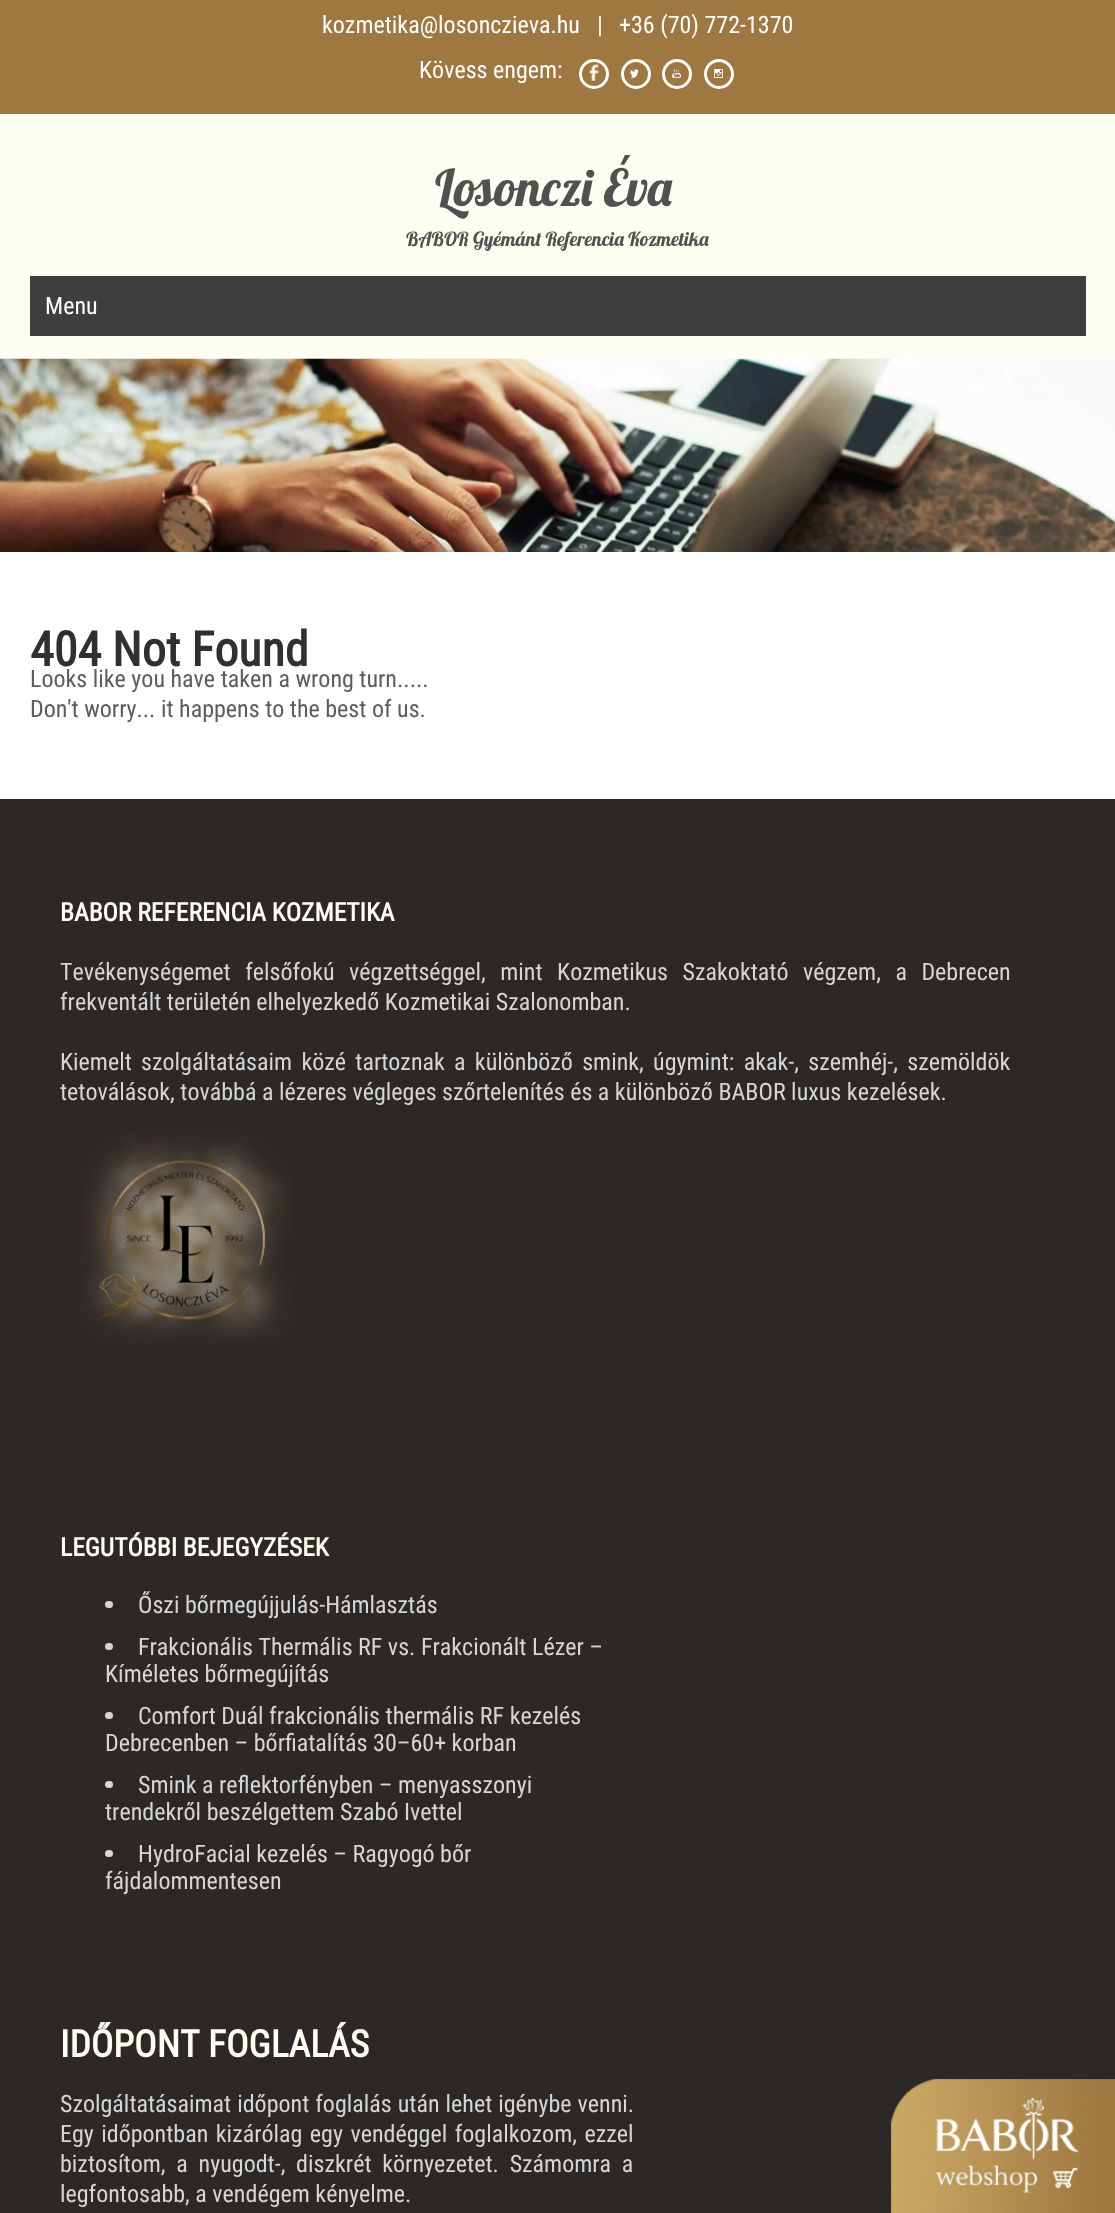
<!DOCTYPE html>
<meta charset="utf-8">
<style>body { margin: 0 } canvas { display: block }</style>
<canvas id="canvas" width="1115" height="2213"></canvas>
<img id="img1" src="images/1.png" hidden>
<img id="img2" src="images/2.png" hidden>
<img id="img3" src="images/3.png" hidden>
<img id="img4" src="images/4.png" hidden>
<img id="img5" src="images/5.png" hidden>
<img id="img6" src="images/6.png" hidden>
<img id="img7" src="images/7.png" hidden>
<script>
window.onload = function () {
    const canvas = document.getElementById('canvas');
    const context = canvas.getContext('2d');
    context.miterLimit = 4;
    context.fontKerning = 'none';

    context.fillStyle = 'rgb(255, 255, 255)';
    context.fillRect(0, 0, 1115, 2213);
    context.fillStyle = 'rgb(159, 120, 65)';
    context.fillRect(0, 0, 1115, 114);
    context.drawImage(document.getElementById('img1'), 589, 64, 10, 17);
    context.beginPath();
    context.arc(594, 74, 13.5, 0, 2 * Math.PI);
    context.strokeStyle = 'rgb(255, 255, 255)';
    context.lineWidth = 3;
    context.stroke();
    context.drawImage(document.getElementById('img2'), 630, 69, 9, 9);
    context.beginPath();
    context.arc(636, 74, 13.5, 0, 2 * Math.PI);
    context.stroke();
    context.drawImage(document.getElementById('img3'), 672, 69, 9, 9);
    context.beginPath();
    context.arc(677, 74, 13.5, 0, 2 * Math.PI);
    context.stroke();
    context.drawImage(document.getElementById('img4'), 714, 69, 9, 9);
    context.beginPath();
    context.arc(719, 74, 13.5, 0, 2 * Math.PI);
    context.stroke();
    context.fillStyle = 'rgb(253, 253, 241)';
    context.fillRect(0, 114, 1115, 245);
    context.fillStyle = 'rgb(62, 62, 62)';
    context.fillRect(30, 276, 1056, 60);
    context.drawImage(document.getElementById('img5'), 0, 358, 1115, 194);
    context.fillStyle = 'rgb(44, 40, 37)';
    context.fillRect(0, 799, 1115, 1414);
    context.drawImage(document.getElementById('img6'), 79, 1134, 213, 210);
    context.fillStyle = 'rgb(214, 214, 214)';
    context.beginPath();
    context.roundRect(105, 1601, 8, 7, 3.5);
    context.fill();
    context.beginPath();
    context.roundRect(105, 1643, 8, 7, 3.5);
    context.fill();
    context.beginPath();
    context.roundRect(105, 1712, 8, 7, 3.5);
    context.fill();
    context.beginPath();
    context.roundRect(105, 1781, 8, 7, 3.5);
    context.fill();
    context.beginPath();
    context.roundRect(105, 1850, 8, 7, 3.5);
    context.fill();
    context.drawImage(document.getElementById('img7'), 891, 2079, 224, 134);
    context.font = '24px Roboto Condensed';
    context.fillStyle = 'rgb(255, 255, 255)';
    context.fillText('kozmetika@losonczieva.hu', 322, 33);
    context.fillText('|', 597, 33);
    context.fillText('+36 (70) 772-1370', 619, 33);
    context.fillText('Kövess engem:', 419, 78);
    context.font = '51px Lobster';
    context.fillStyle = 'rgb(81, 81, 81)';
    context.fillText('Losonczi Éva', 435, 206);
    context.font = '19.5px Lobster';
    context.fillText('BABOR Gyémánt Referencia Kozmetika', 406, 246);
    context.font = '24px Roboto Condensed';
    context.fillStyle = 'rgb(255, 255, 255)';
    context.fillText('Menu', 45, 314);
    context.font = 'bold 48px Roboto Condensed';
    context.fillStyle = 'rgb(48, 48, 48)';
    context.fillText('404 Not Found', 30, 666);
    context.font = '24px Roboto Condensed';
    context.fillStyle = 'rgb(92, 92, 92)';
    context.fillText('Looks like you have taken a wrong turn.....', 30, 687);
    context.fillText('Don\'t worry... it happens to the best of us.', 30, 717);
    context.font = 'bold 25.5px Roboto Condensed';
    context.fillStyle = 'rgb(253, 253, 241)';
    context.fillText('BABOR REFERENCIA KOZMETIKA', 60, 921);
    context.wordSpacing = '9px';
    context.font = '24px Roboto Condensed';
    context.fillStyle = 'rgb(214, 214, 214)';
    context.fillText('Tevékenységemet felsőfokú végzettséggel, mint Kozmetikus Szakoktató végzem, a Debrecen', 60, 980);
    context.wordSpacing = '0px';
    context.fillText('frekventált területén elhelyezkedő Kozmetikai Szalonomban.', 60, 1010);
    context.wordSpacing = '3.75px';
    context.fillText('Kiemelt szolgáltatásaim közé tartoznak a különböző smink, úgymint: akak-, szemhéj-, szemöldök', 60, 1070);
    context.wordSpacing = '0px';
    context.fillText('tetoválások, továbbá a lézeres végleges szőrtelenítés és a különböző BABOR luxus kezelések.', 60, 1100);
    context.font = 'bold 25.5px Roboto Condensed';
    context.fillStyle = 'rgb(253, 253, 241)';
    context.fillText('LEGUTÓBBI BEJEGYZÉSEK', 60, 1556);
    context.font = '24px Roboto Condensed';
    context.fillStyle = 'rgb(214, 214, 214)';
    context.fillText('Őszi bőrmegújjulás-Hámlasztás', 138, 1613);
    context.fillText('Frakcionális Thermális RF vs. Frakcionált Lézer –', 138, 1655);
    context.fillText('Kíméletes bőrmegújítás', 105, 1682);
    context.fillText('Comfort Duál frakcionális thermális RF kezelés', 138, 1724);
    context.fillText('Debrecenben – bőrfiatalítás 30–60+ korban', 105, 1751);
    context.fillText('Smink a reflektorfényben – menyasszonyi', 138, 1793);
    context.fillText('trendekről beszélgettem Szabó Ivettel', 105, 1820);
    context.fillText('HydroFacial kezelés – Ragyogó bőr', 138, 1862);
    context.fillText('fájdalommentesen', 105, 1889);
    context.font = 'bold 37.5px Roboto Condensed';
    context.fillStyle = 'rgb(253, 253, 241)';
    context.fillText('IDŐPONT FOGLALÁS', 60, 2057);
    context.wordSpacing = '0.5px';
    context.font = '24px Roboto Condensed';
    context.fillStyle = 'rgb(214, 214, 214)';
    context.fillText('Szolgáltatásaimat időpont foglalás után lehet igénybe venni.', 60, 2112);
    context.wordSpacing = '2px';
    context.fillText('Egy időpontban kizárólag egy vendéggel foglalkozom, ezzel', 60, 2142);
    context.wordSpacing = '5.25px';
    context.fillText('biztosítom, a nyugodt-, diszkrét környezetet. Számomra a', 60, 2172);
    context.wordSpacing = '0px';
    context.fillText('legfontosabb, a vendégem kényelme.', 60, 2202);
};
</script>
